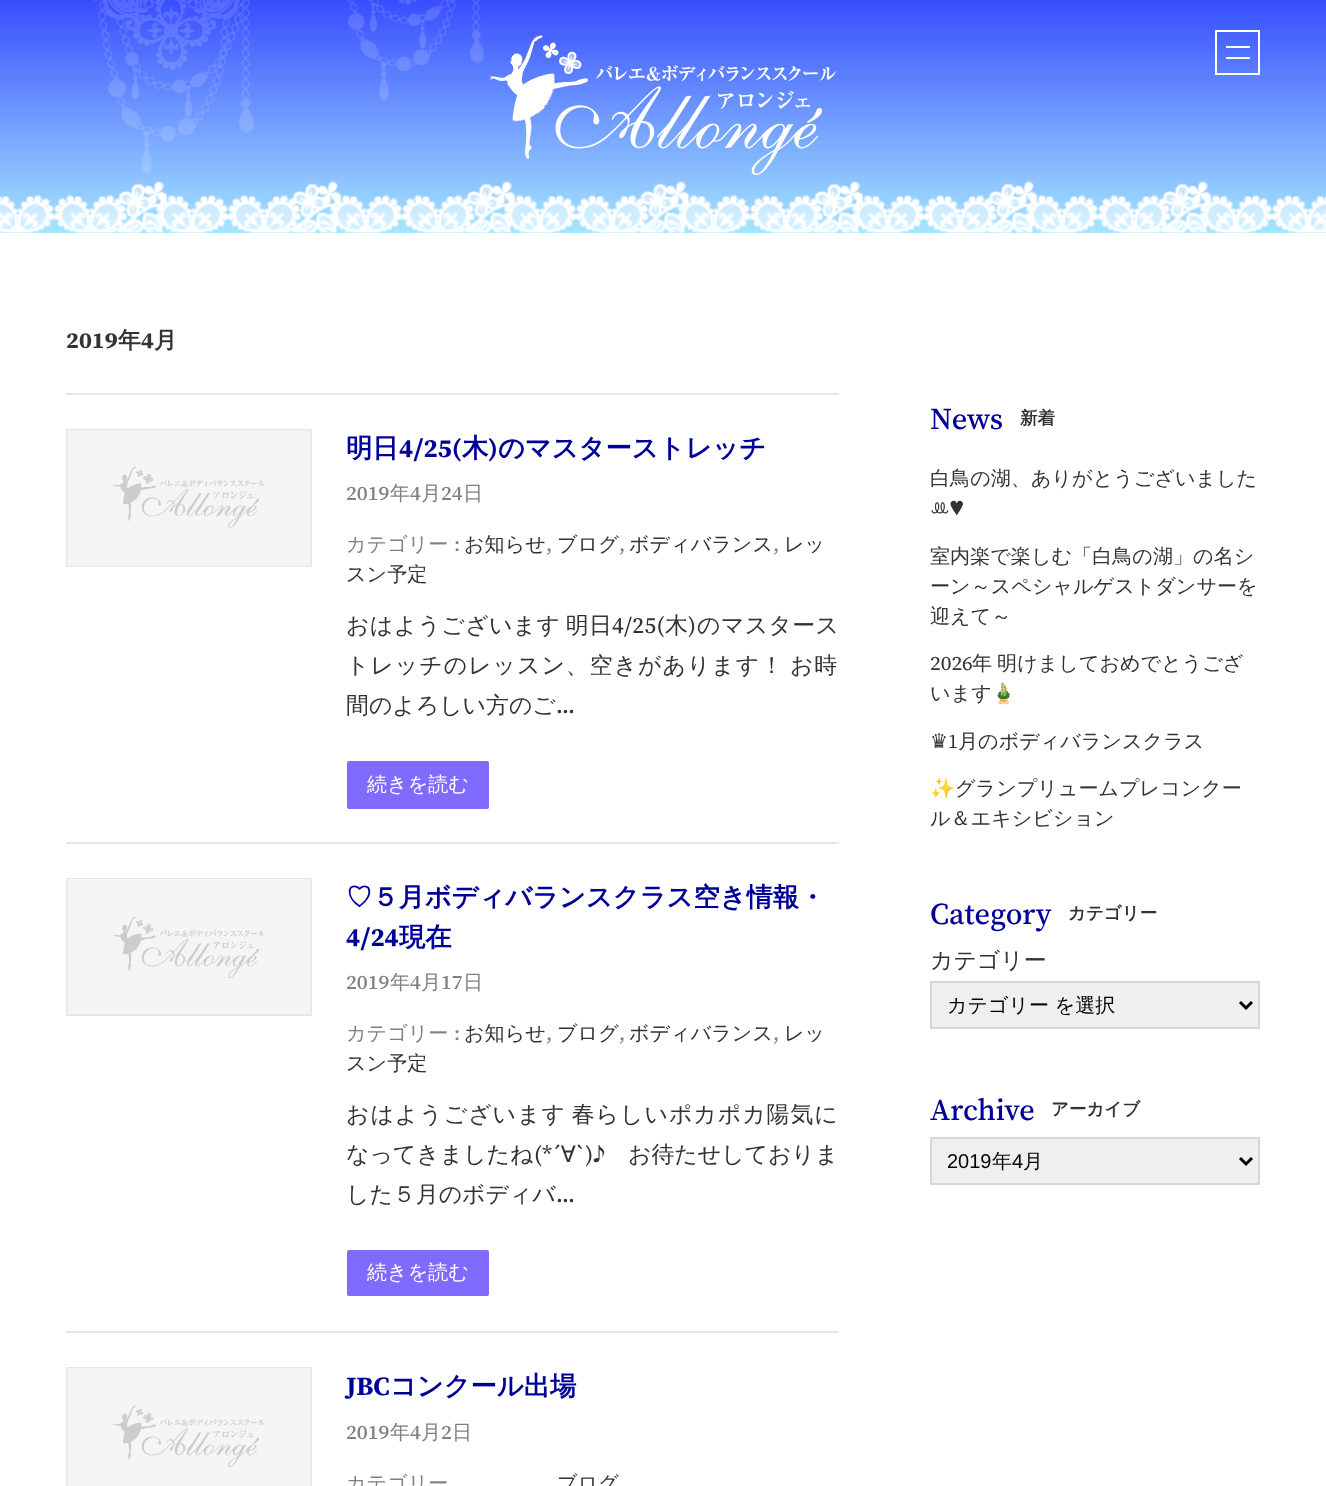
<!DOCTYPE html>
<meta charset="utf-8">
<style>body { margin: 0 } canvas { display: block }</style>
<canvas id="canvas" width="1326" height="1486"></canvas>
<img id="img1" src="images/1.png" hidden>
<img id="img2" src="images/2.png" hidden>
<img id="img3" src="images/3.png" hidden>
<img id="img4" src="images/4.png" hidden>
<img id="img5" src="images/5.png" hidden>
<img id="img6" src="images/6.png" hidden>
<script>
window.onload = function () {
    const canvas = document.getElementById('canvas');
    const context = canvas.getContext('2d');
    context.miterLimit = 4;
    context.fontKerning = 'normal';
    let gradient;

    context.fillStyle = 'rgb(255, 255, 255)';
    context.fillRect(0, 0, 1326, 1486);
    gradient = context.createLinearGradient(663, 233, 663, 0);
    gradient.addColorStop(0, 'rgb(166, 230, 255)');
    gradient.addColorStop(1, 'rgb(56, 77, 255)');
    context.fillStyle = gradient;
    context.fillRect(0, 0, 1326, 233);
    context.drawImage(document.getElementById('img1'), 0, 181, 1326, 52);
    context.drawImage(document.getElementById('img2'), 93, 0, 391, 173);
    context.drawImage(document.getElementById('img3'), 490, 35, 346, 140);
    context.strokeStyle = 'rgb(255, 255, 255)';
    context.lineWidth = 2;
    context.strokeRect(1216, 31, 43, 43);
    context.fillStyle = 'rgb(255, 255, 255)';
    context.fillRect(1226, 46, 24, 2);
    context.fillRect(1226, 57, 24, 2);
    context.fillStyle = 'rgb(230, 230, 230)';
    context.fillRect(66, 393, 773, 2);
    context.strokeStyle = 'rgb(230, 230, 230)';
    context.strokeRect(67, 430, 244, 136);
    context.drawImage(document.getElementById('img4'), 67, 430, 244, 136);
    context.fillStyle = 'rgb(128, 107, 255)';
    context.beginPath();
    context.roundRect(347, 761, 142, 48, 2);
    context.fill();
    context.fillStyle = 'rgb(230, 230, 230)';
    context.fillRect(66, 842, 773, 2);
    context.strokeRect(67, 879, 244, 136);
    context.drawImage(document.getElementById('img5'), 67, 879, 244, 135);
    context.fillStyle = 'rgb(128, 107, 255)';
    context.beginPath();
    context.roundRect(347, 1250, 142, 46, 2);
    context.fill();
    context.fillStyle = 'rgb(230, 230, 230)';
    context.fillRect(66, 1331, 773, 2);
    context.strokeRect(67, 1368, 244, 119);
    context.drawImage(document.getElementById('img6'), 67, 1368, 244, 118);
    context.fillStyle = 'rgb(239, 239, 239)';
    context.beginPath();
    context.rect(931, 982, 328, 46);
    context.fill();
    context.strokeStyle = 'rgb(215, 215, 215)';
    context.stroke();
    context.beginPath();
    context.moveTo(1240, 1002);
    context.lineTo(1246, 1008);
    context.lineTo(1252, 1002);
    context.strokeStyle = 'rgb(0, 0, 0)';
    context.lineWidth = 3;
    context.stroke();
    context.beginPath();
    context.rect(931, 1138, 328, 46);
    context.fill();
    context.strokeStyle = 'rgb(215, 215, 215)';
    context.lineWidth = 2;
    context.stroke();
    context.beginPath();
    context.moveTo(1240, 1158);
    context.lineTo(1246, 1164);
    context.lineTo(1252, 1158);
    context.strokeStyle = 'rgb(0, 0, 0)';
    context.lineWidth = 3;
    context.stroke();
    context.font = 'bold 22.9px "Source Serif 4"';
    context.fillStyle = 'rgb(51, 51, 51)';
    context.fillText('2019', 66, 348);
    context.font = 'bold 22.9px WenQuanYi Zen Hei';
    context.fillText('年', 118, 348);
    context.font = 'bold 22.9px "Source Serif 4"';
    context.fillText('4', 141, 348);
    context.font = 'bold 22.9px WenQuanYi Zen Hei';
    context.fillText('月', 154, 348);
    context.font = 'bold 26.25px WenQuanYi Zen Hei';
    context.fillStyle = 'rgb(0, 0, 153)';
    context.fillText('明日', 346, 457);
    context.font = 'bold 26.25px "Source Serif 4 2"';
    context.fillText('4/25(', 399, 457);
    context.font = 'bold 26.25px WenQuanYi Zen Hei';
    context.fillText('木', 462, 457);
    context.font = 'bold 26.25px "Source Serif 4 2"';
    context.fillText(')', 488, 457);
    context.font = 'bold 26.25px WenQuanYi Zen Hei';
    context.fillText('のマスターストレッチ', 498, 457);
    context.font = '500 20.1px "Source Serif 4"';
    context.fillStyle = 'rgb(128, 128, 128)';
    context.fillText('2019', 346, 500);
    context.font = '500 20.1px WenQuanYi Zen Hei';
    context.fillText('年', 390, 500);
    context.font = '500 20.1px "Source Serif 4"';
    context.fillText('4', 410, 500);
    context.font = '500 20.1px WenQuanYi Zen Hei';
    context.fillText('月', 421, 500);
    context.font = '500 20.1px "Source Serif 4"';
    context.fillText('24', 441, 500);
    context.font = '500 20.1px WenQuanYi Zen Hei';
    context.fillText('日', 463, 500);
    context.fillText('カテゴリー', 346, 551);
    context.font = '500 20.1px "Source Serif 4"';
    context.fillText(':', 454, 551);
    context.font = '500 20.1px WenQuanYi Zen Hei';
    context.fillStyle = 'rgb(51, 51, 51)';
    context.fillText('お知らせ', 464, 551);
    context.font = '500 20.1px "Source Serif 4"';
    context.fillStyle = 'rgb(128, 128, 128)';
    context.fillText(',', 546, 551);
    context.font = '500 20.1px WenQuanYi Zen Hei';
    context.fillStyle = 'rgb(51, 51, 51)';
    context.fillText('ブログ', 557, 551);
    context.font = '500 20.1px "Source Serif 4"';
    context.fillStyle = 'rgb(128, 128, 128)';
    context.fillText(',', 619, 551);
    context.font = '500 20.1px WenQuanYi Zen Hei';
    context.fillStyle = 'rgb(51, 51, 51)';
    context.fillText('ボディバランス', 629, 551);
    context.font = '500 20.1px "Source Serif 4"';
    context.fillStyle = 'rgb(128, 128, 128)';
    context.fillText(',', 773, 551);
    context.font = '500 20.1px WenQuanYi Zen Hei';
    context.fillStyle = 'rgb(51, 51, 51)';
    context.fillText('レッ', 784, 551);
    context.fillText('スン予定', 346, 581);
    context.letterSpacing = '0.4px';
    context.wordSpacing = '-2px';
    context.font = '500 22.9px WenQuanYi Zen Hei';
    context.fillText('おはようございます 明日', 346, 633);
    context.wordSpacing = '0px';
    context.font = '500 22.9px "Source Serif 4 2"';
    context.fillText('4/25(', 612, 633);
    context.font = '500 22.9px WenQuanYi Zen Hei';
    context.fillText('木', 665, 633);
    context.font = '500 22.9px "Source Serif 4 2"';
    context.fillText(')', 688, 633);
    context.font = '500 22.9px WenQuanYi Zen Hei';
    context.fillText('のマスタース', 697, 633);
    context.letterSpacing = '1px';
    context.wordSpacing = '-2px';
    context.fillText('トレッチのレッスン、空きがあります！ お時', 346, 673);
    context.letterSpacing = '0px';
    context.wordSpacing = '0px';
    context.fillText('間のよろしい方のご', 346, 713);
    context.font = '500 22.9px "Source Serif 4 2"';
    context.fillText('…', 556, 713);
    context.font = '500 20.1px WenQuanYi Zen Hei';
    context.fillStyle = 'rgb(255, 255, 255)';
    context.fillText('続きを読む', 367, 791);
    context.font = 'bold 26.25px WenQuanYi Zen Hei';
    context.fillStyle = 'rgb(0, 0, 153)';
    context.fillText('♡５月ボディバランスクラス空き情報・', 346, 906);
    context.font = 'bold 26.25px "Source Serif 4 2"';
    context.fillText('4/24', 346, 946);
    context.font = 'bold 26.25px WenQuanYi Zen Hei';
    context.fillText('現在', 399, 946);
    context.font = '500 20.1px "Source Serif 4"';
    context.fillStyle = 'rgb(128, 128, 128)';
    context.fillText('2019', 346, 989);
    context.font = '500 20.1px WenQuanYi Zen Hei';
    context.fillText('年', 390, 989);
    context.font = '500 20.1px "Source Serif 4"';
    context.fillText('4', 410, 989);
    context.font = '500 20.1px WenQuanYi Zen Hei';
    context.fillText('月', 421, 989);
    context.font = '500 20.1px "Source Serif 4"';
    context.fillText('17', 441, 989);
    context.font = '500 20.1px WenQuanYi Zen Hei';
    context.fillText('日', 463, 989);
    context.fillText('カテゴリー', 346, 1040);
    context.font = '500 20.1px "Source Serif 4"';
    context.fillText(':', 454, 1040);
    context.font = '500 20.1px WenQuanYi Zen Hei';
    context.fillStyle = 'rgb(51, 51, 51)';
    context.fillText('お知らせ', 464, 1040);
    context.font = '500 20.1px "Source Serif 4"';
    context.fillStyle = 'rgb(128, 128, 128)';
    context.fillText(',', 546, 1040);
    context.font = '500 20.1px WenQuanYi Zen Hei';
    context.fillStyle = 'rgb(51, 51, 51)';
    context.fillText('ブログ', 557, 1040);
    context.font = '500 20.1px "Source Serif 4"';
    context.fillStyle = 'rgb(128, 128, 128)';
    context.fillText(',', 619, 1040);
    context.font = '500 20.1px WenQuanYi Zen Hei';
    context.fillStyle = 'rgb(51, 51, 51)';
    context.fillText('ボディバランス', 629, 1040);
    context.font = '500 20.1px "Source Serif 4"';
    context.fillStyle = 'rgb(128, 128, 128)';
    context.fillText(',', 773, 1040);
    context.font = '500 20.1px WenQuanYi Zen Hei';
    context.fillStyle = 'rgb(51, 51, 51)';
    context.fillText('レッ', 784, 1040);
    context.fillText('スン予定', 346, 1070);
    context.letterSpacing = '1px';
    context.wordSpacing = '-2px';
    context.font = '500 22.9px WenQuanYi Zen Hei';
    context.fillText('おはようございます 春らしいポカポカ陽気に', 346, 1122);
    context.letterSpacing = '0px';
    context.wordSpacing = '0px';
    context.fillText('なってきましたね', 346, 1162);
    context.font = '500 22.9px "Source Serif 4 2"';
    context.fillText('(*´', 534, 1162);
    context.font = '500 22.9px WenQuanYi Zen Hei';
    context.fillText('∀', 561, 1162);
    context.font = '500 22.9px "Source Serif 4 2"';
    context.fillText('`)♪', 576, 1162);
    context.font = '500 22.9px WenQuanYi Zen Hei';
    context.fillText('お待たせしておりま', 628, 1162);
    context.fillText('した５月のボディバ', 346, 1202);
    context.font = '500 22.9px "Source Serif 4 2"';
    context.fillText('…', 556, 1202);
    context.font = '500 20.1px WenQuanYi Zen Hei';
    context.fillStyle = 'rgb(255, 255, 255)';
    context.fillText('続きを読む', 367, 1279);
    context.font = 'bold 26.25px "Source Serif 4 2"';
    context.fillStyle = 'rgb(0, 0, 153)';
    context.fillText('JBC', 346, 1395);
    context.font = 'bold 26.25px WenQuanYi Zen Hei';
    context.fillText('コンクール出場', 390, 1395);
    context.font = '500 20.1px "Source Serif 4"';
    context.fillStyle = 'rgb(128, 128, 128)';
    context.fillText('2019', 346, 1439);
    context.font = '500 20.1px WenQuanYi Zen Hei';
    context.fillText('年', 390, 1439);
    context.font = '500 20.1px "Source Serif 4"';
    context.fillText('4', 410, 1439);
    context.font = '500 20.1px WenQuanYi Zen Hei';
    context.fillText('月', 421, 1439);
    context.font = '500 20.1px "Source Serif 4"';
    context.fillText('2', 441, 1439);
    context.font = '500 20.1px WenQuanYi Zen Hei';
    context.fillText('日', 452, 1439);
    context.fillText('カテゴリー', 346, 1490);
    context.fillStyle = 'rgb(51, 51, 51)';
    context.fillText('ブログ', 557, 1490);
    context.font = '500 30.25px "Source Serif 4 2"';
    context.fillStyle = 'rgb(0, 0, 153)';
    context.fillText('News', 930, 429);
    context.font = 'bold 17.5px WenQuanYi Zen Hei';
    context.fillStyle = 'rgb(51, 51, 51)';
    context.fillText('新着', 1020, 424);
    context.font = '500 20.1px WenQuanYi Zen Hei';
    context.fillText('白鳥の湖、ありがとうございました', 930, 485);
    context.font = '20.1px FreeSans';
    context.fillText('ꔛ♥', 930, 515);
    context.font = '500 20.1px WenQuanYi Zen Hei';
    context.fillText('室内楽で楽しむ「白鳥の湖」の名シ', 930, 563);
    context.fillText('ーン～スペシャルゲストダンサーを', 930, 593);
    context.fillText('迎えて～', 930, 623);
    context.font = '20.1px "Source Serif 4"';
    context.fillText('2026', 930, 670);
    context.wordSpacing = '-1px';
    context.font = '500 20.1px WenQuanYi Zen Hei';
    context.fillText('年 明けましておめでとうござ', 972, 670);
    context.wordSpacing = '0px';
    context.fillText('います', 930, 700);
    context.font = '20.1px Noto Color Emoji';
    context.fillText('🎍', 991, 700);
    context.font = '20.1px DejaVu Sans';
    context.fillText('♛︎', 930, 748);
    context.font = '20.1px "Source Serif 4 2"';
    context.fillText('1', 948, 748);
    context.font = '500 20.1px WenQuanYi Zen Hei';
    context.fillText('月のボディバランスクラス', 958, 748);
    context.font = '20.1px "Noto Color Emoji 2"';
    context.fillText('✨', 930, 795);
    context.font = '500 20.1px WenQuanYi Zen Hei';
    context.fillText('グランプリュームプレコンクー', 955, 795);
    context.fillText('ル＆エキシビション', 930, 825);
    context.font = '500 30.25px "Source Serif 4 2"';
    context.fillStyle = 'rgb(0, 0, 153)';
    context.fillText('Category', 930, 924);
    context.font = 'bold 17.5px WenQuanYi Zen Hei';
    context.fillStyle = 'rgb(51, 51, 51)';
    context.fillText('カテゴリー', 1068, 919);
    context.font = '500 22.9px WenQuanYi Zen Hei';
    context.fillText('カテゴリー', 930, 968);
    context.font = '500 20px WenQuanYi Zen Hei';
    context.fillStyle = 'rgb(0, 0, 0)';
    context.fillText('カテゴリー を選択', 947, 1012);
    context.font = '500 30.25px "Source Serif 4 2"';
    context.fillStyle = 'rgb(0, 0, 153)';
    context.fillText('Archive', 930, 1120);
    context.font = 'bold 17.5px WenQuanYi Zen Hei';
    context.fillStyle = 'rgb(51, 51, 51)';
    context.fillText('アーカイブ', 1051, 1115);
    context.font = '20px Liberation Sans';
    context.fillStyle = 'rgb(0, 0, 0)';
    context.fillText('2019', 947, 1168);
    context.font = '500 20px WenQuanYi Zen Hei';
    context.fillText('年', 992, 1168);
    context.font = '20px Liberation Sans';
    context.fillText('4', 1012, 1168);
    context.font = '500 20px WenQuanYi Zen Hei';
    context.fillText('月', 1023, 1168);
};
</script>
